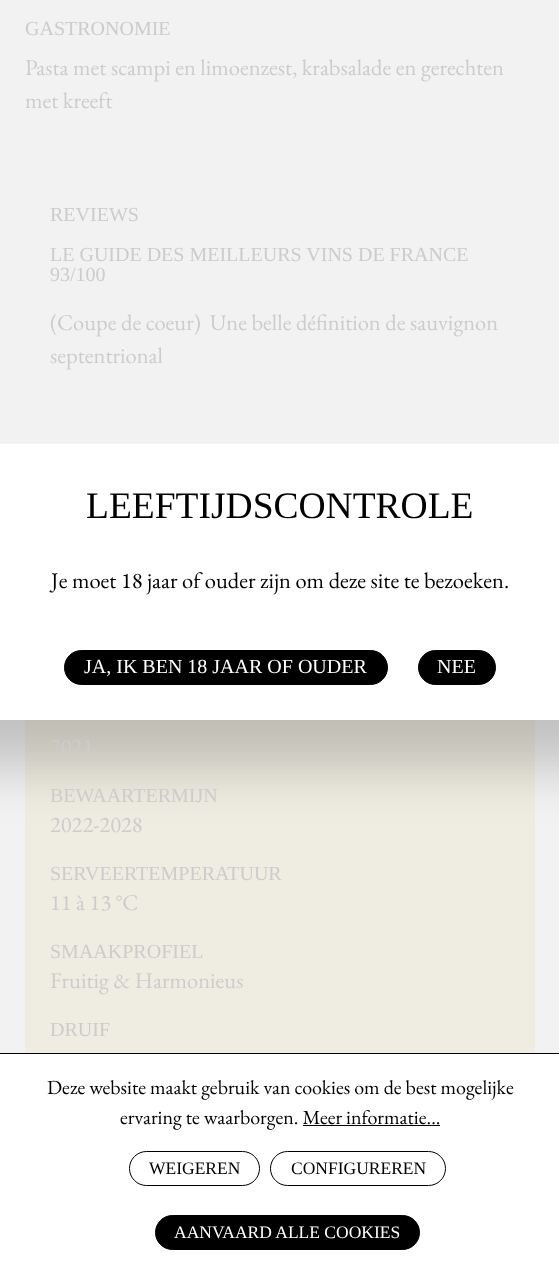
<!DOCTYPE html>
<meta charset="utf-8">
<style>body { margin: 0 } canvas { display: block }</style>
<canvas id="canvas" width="559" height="1268"></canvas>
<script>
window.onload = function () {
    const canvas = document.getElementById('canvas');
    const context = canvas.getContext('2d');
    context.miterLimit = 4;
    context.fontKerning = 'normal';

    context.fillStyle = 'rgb(242, 242, 242)';
    context.fillRect(0, 0, 559, 1268);
    context.fillStyle = 'rgb(239, 236, 225)';
    context.fillRect(25, 720, 510, 333);
    context.fillStyle = 'rgba(0, 0, 0, 0.2)';
    context.filter = 'blur(27px)';
    context.beginPath();
    context.rect(-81, 505, 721, 261);
    context.fill();
    context.filter = 'none';
    context.fillStyle = 'rgb(255, 255, 255)';
    context.fillRect(0, 444, 559, 276);
    context.fillStyle = 'rgb(0, 0, 0)';
    context.beginPath();
    context.roundRect(64.5, 650.5, 323, 34, 17);
    context.fill();
    context.strokeStyle = 'rgb(0, 0, 0)';
    context.stroke();
    context.beginPath();
    context.roundRect(418.5, 650.5, 77, 34, 17);
    context.fill();
    context.stroke();
    context.fillStyle = 'rgb(255, 255, 255)';
    context.fillRect(0, 1054, 559, 214);
    context.fillStyle = 'rgb(0, 0, 0)';
    context.fillRect(0, 1053, 559, 1);
    context.fillRect(303, 1125, 137, 1);
    context.beginPath();
    context.roundRect(129.5, 1151.5, 130, 34, 17);
    context.stroke();
    context.beginPath();
    context.roundRect(270.5, 1151.5, 175, 34, 17);
    context.stroke();
    context.beginPath();
    context.roundRect(155.5, 1215.5, 264, 34, 17);
    context.fill();
    context.stroke();
    context.font = '20px Liberation Serif';
    context.fillStyle = 'rgb(204, 204, 204)';
    context.fillText('GASTRONOMIE', 25, 35);
    context.font = '22.5px EB Garamond';
    context.fillText('Pasta met scampi en limoenzest, krabsalade en gerechten', 25, 75);
    context.fillText('met kreeft', 25, 108);
    context.font = '20px Liberation Serif';
    context.fillText('REVIEWS', 50, 221);
    context.fillText('LE GUIDE DES MEILLEURS VINS DE FRANCE', 50, 261);
    context.fillText('93/100', 50, 281);
    context.font = '22.5px EB Garamond';
    context.fillText('(Coupe de coeur)  Une belle définition de sauvignon', 50, 330);
    context.fillText('septentrional', 50, 363);
    context.fillText('2021', 50, 754);
    context.font = '20px Liberation Serif';
    context.fillText('BEWAARTERMIJN', 50, 802);
    context.font = '22.5px EB Garamond';
    context.fillText('2022-2028', 50, 832);
    context.font = '20px Liberation Serif';
    context.fillText('SERVEERTEMPERATUUR', 50, 880);
    context.font = '22.5px EB Garamond';
    context.fillText('11 à 13 °C', 50, 910);
    context.font = '20px Liberation Serif';
    context.fillText('SMAAKPROFIEL', 50, 958);
    context.font = '22.5px EB Garamond';
    context.fillText('Fruitig & Harmonieus', 50, 988);
    context.font = '20px Liberation Serif';
    context.fillText('DRUIF', 50, 1036);
    context.font = '37.5px Liberation Serif';
    context.fillStyle = 'rgb(0, 0, 0)';
    context.fillText('LEEFTIJDSCONTROLE', 86, 518);
    context.font = '22.5px EB Garamond';
    context.fillText('Je moet 18 jaar of ouder zijn om deze site te bezoeken.', 51, 588);
    context.font = '20px Liberation Serif';
    context.fillStyle = 'rgb(255, 255, 255)';
    context.fillText('JA, IK BEN 18 JAAR OF OUDER', 84, 673);
    context.fillText('NEE', 437, 673);
    context.font = '20px EB Garamond';
    context.fillStyle = 'rgb(0, 0, 0)';
    context.fillText('Deze website maakt gebruik van cookies om de best mogelijke', 47, 1094);
    context.fillText('ervaring te waarborgen. Meer informatie...', 120, 1124);
    context.font = '17.5px Liberation Serif';
    context.fillText('WEIGEREN', 149, 1174);
    context.fillText('CONFIGUREREN', 291, 1174);
    context.fillStyle = 'rgb(255, 255, 255)';
    context.fillText('AANVAARD ALLE COOKIES', 174, 1238);
};
</script>
